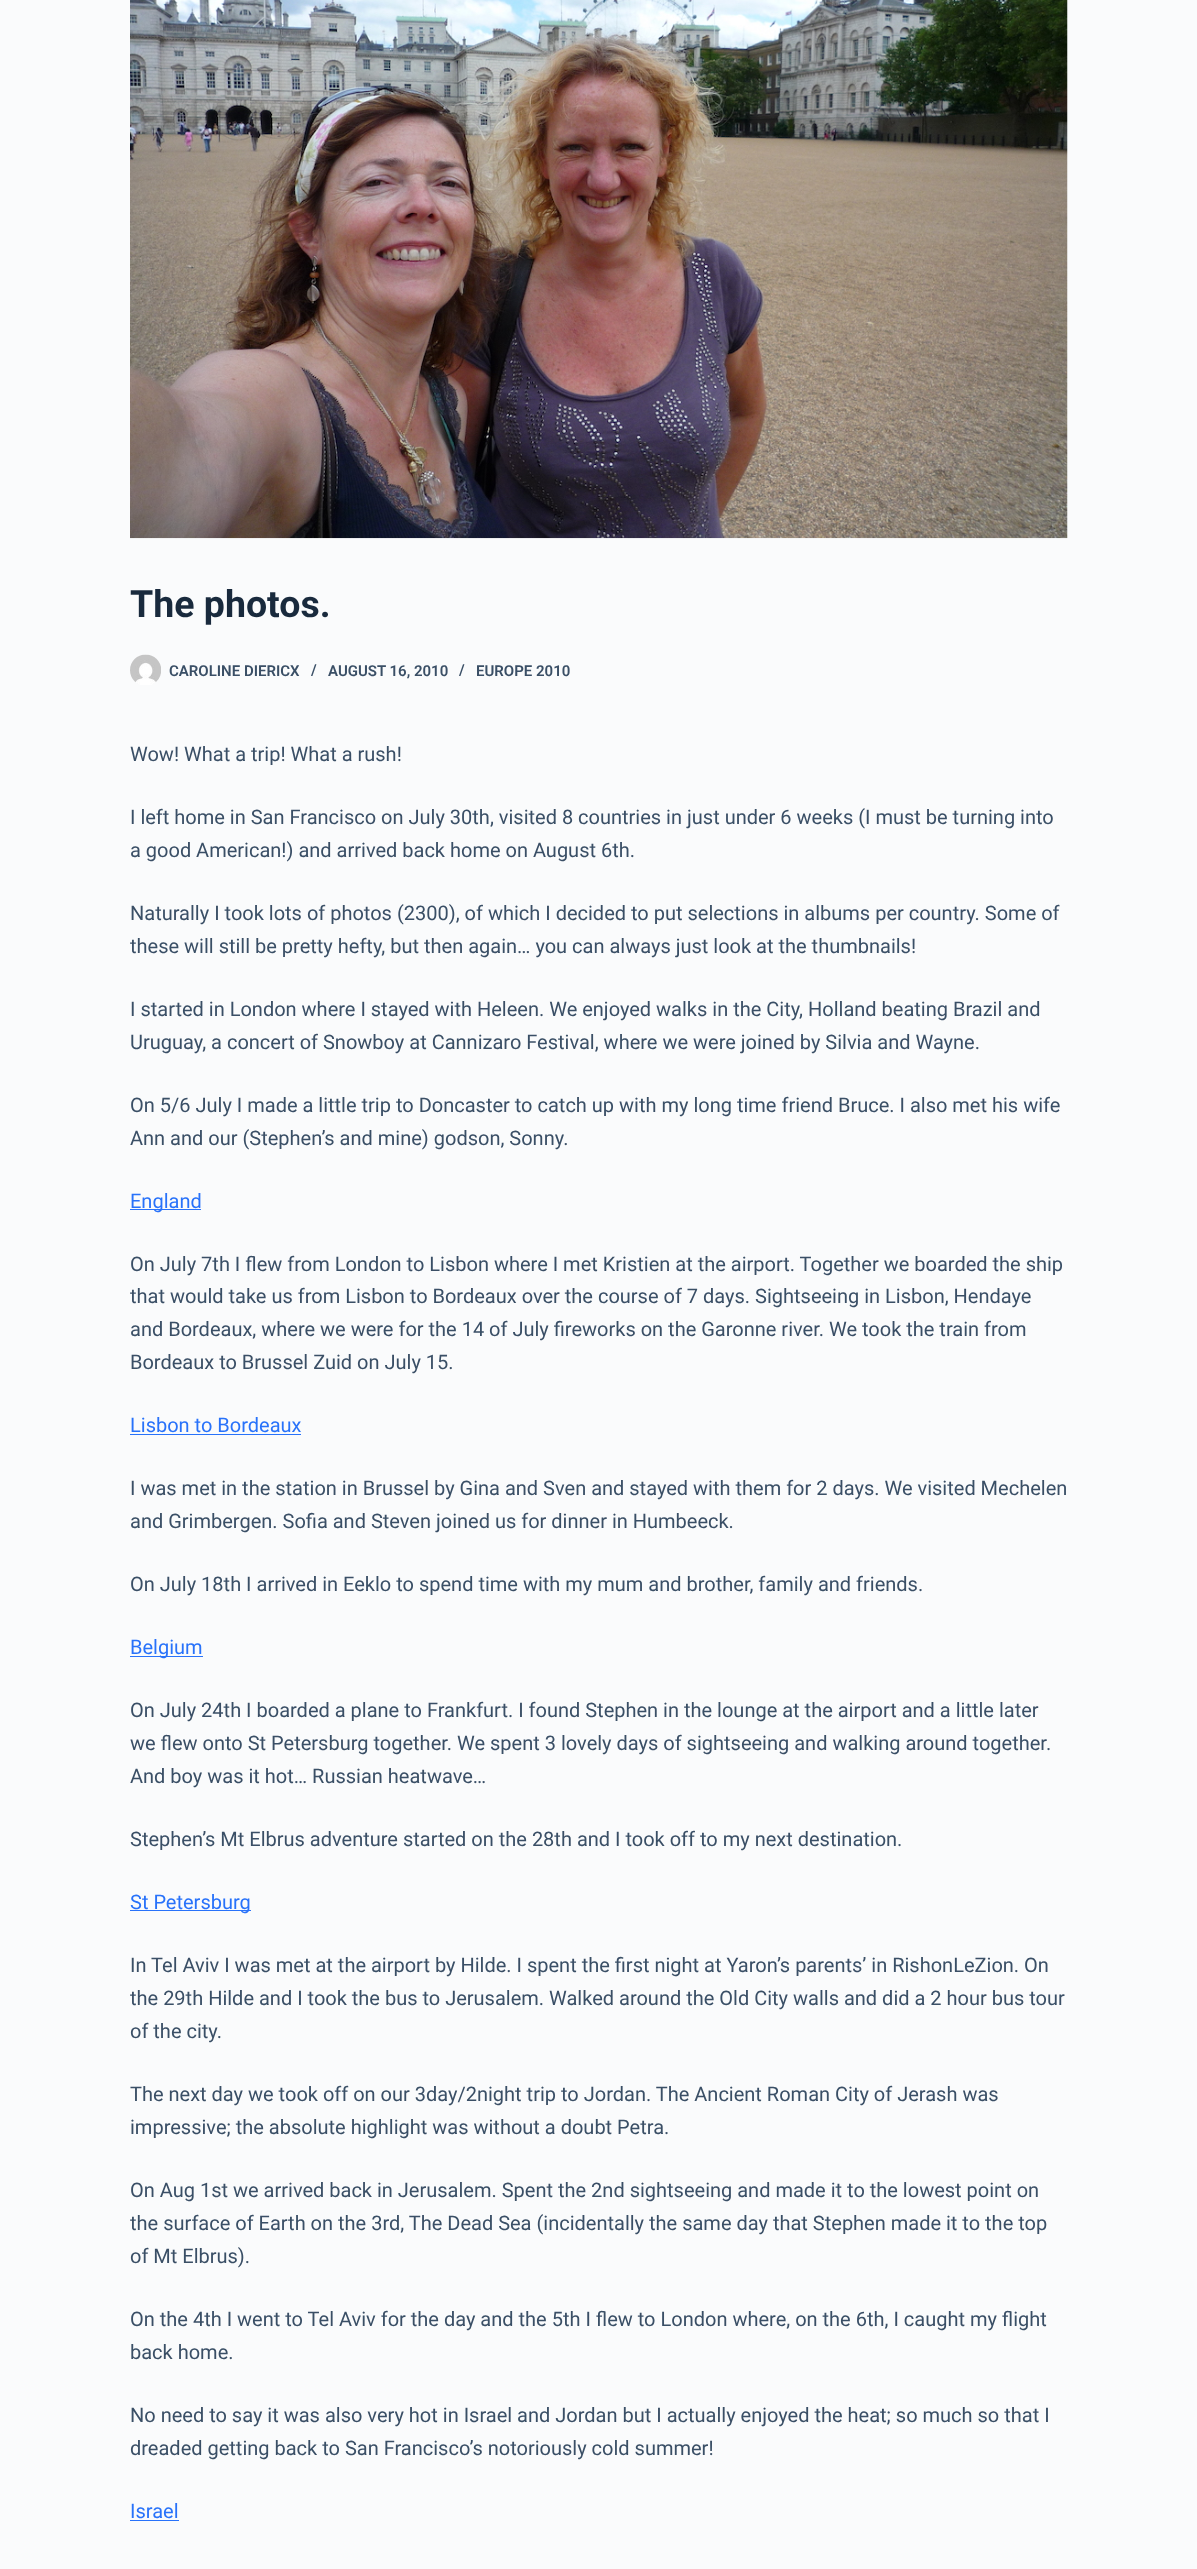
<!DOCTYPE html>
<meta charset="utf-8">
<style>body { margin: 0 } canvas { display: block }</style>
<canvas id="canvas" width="1197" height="2569"></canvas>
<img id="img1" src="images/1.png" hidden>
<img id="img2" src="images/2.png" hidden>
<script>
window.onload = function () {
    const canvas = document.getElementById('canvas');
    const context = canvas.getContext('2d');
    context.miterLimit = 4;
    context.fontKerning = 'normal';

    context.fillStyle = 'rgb(250, 251, 252)';
    context.fillRect(0, 0, 1197, 2569);
    context.drawImage(document.getElementById('img1'), 130, 0, 938, 539);
    context.drawImage(document.getElementById('img2'), 130, 654, 31, 31);
    context.fillStyle = 'rgb(40, 114, 250)';
    context.fillRect(130, 1209, 71, 1);
    context.fillRect(130, 1434, 171, 1);
    context.fillRect(130, 1656, 73, 1);
    context.fillRect(130, 1910, 121, 1);
    context.fillRect(130, 2520, 49, 1);
    context.font = 'bold 37.5px Roboto';
    context.fillStyle = 'rgb(25, 42, 61)';
    context.fillText('The photos.', 130, 617);
    context.font = '600 15px Roboto';
    context.fillStyle = 'rgb(58, 79, 102)';
    context.fillText('CAROLINE DIERICX', 169, 676);
    context.fillText('/', 311, 675);
    context.fillText('AUGUST 16, 2010', 328, 676);
    context.fillText('/', 459, 675);
    context.fillText('EUROPE 2010', 476, 676);
    context.font = '20px Roboto';
    context.fillText('Wow! What a trip! What a rush!', 130, 761);
    context.fillText('I left home in San Francisco on July 30th, visited 8 countries in just under 6 weeks (I must be turning into', 130, 824);
    context.fillText('a good American!) and arrived back home on August 6th.', 130, 857);
    context.fillText('Naturally I took lots of photos (2300), of which I decided to put selections in albums per country. Some of', 130, 920);
    context.fillText('these will still be pretty hefty, but then again… you can always just look at the thumbnails!', 130, 953);
    context.fillText('I started in London where I stayed with Heleen. We enjoyed walks in the City, Holland beating Brazil and', 130, 1016);
    context.fillText('Uruguay, a concert of Snowboy at Cannizaro Festival, where we were joined by Silvia and Wayne.', 130, 1049);
    context.fillText('On 5/6 July I made a little trip to Doncaster to catch up with my long time friend Bruce. I also met his wife', 130, 1112);
    context.fillText('Ann and our (Stephen’s and mine) godson, Sonny.', 130, 1145);
    context.fillStyle = 'rgb(40, 114, 250)';
    context.fillText('England', 130, 1208);
    context.fillStyle = 'rgb(58, 79, 102)';
    context.fillText('On July 7th I flew from London to Lisbon where I met Kristien at the airport. Together we boarded the ship', 130, 1271);
    context.fillText('that would take us from Lisbon to Bordeaux over the course of 7 days. Sightseeing in Lisbon, Hendaye', 130, 1303);
    context.fillText('and Bordeaux, where we were for the 14 of July fireworks on the Garonne river. We took the train from', 130, 1336);
    context.fillText('Bordeaux to Brussel Zuid on July 15.', 130, 1369);
    context.fillStyle = 'rgb(40, 114, 250)';
    context.fillText('Lisbon to Bordeaux', 130, 1432);
    context.fillStyle = 'rgb(58, 79, 102)';
    context.fillText('I was met in the station in Brussel by Gina and Sven and stayed with them for 2 days. We visited Mechelen', 130, 1495);
    context.fillText('and Grimbergen. Sofia and Steven joined us for dinner in Humbeeck.', 130, 1528);
    context.fillText('On July 18th I arrived in Eeklo to spend time with my mum and brother, family and friends.', 130, 1591);
    context.fillStyle = 'rgb(40, 114, 250)';
    context.fillText('Belgium', 130, 1654);
    context.fillStyle = 'rgb(58, 79, 102)';
    context.fillText('On July 24th I boarded a plane to Frankfurt. I found Stephen in the lounge at the airport and a little later', 130, 1717);
    context.fillText('we flew onto St Petersburg together. We spent 3 lovely days of sightseeing and walking around together.', 130, 1750);
    context.fillText('And boy was it hot… Russian heatwave…', 130, 1783);
    context.fillText('Stephen’s Mt Elbrus adventure started on the 28th and I took off to my next destination.', 130, 1846);
    context.fillStyle = 'rgb(40, 114, 250)';
    context.fillText('St Petersburg', 130, 1909);
    context.fillStyle = 'rgb(58, 79, 102)';
    context.fillText('In Tel Aviv I was met at the airport by Hilde. I spent the first night at Yaron’s parents’ in RishonLeZion. On', 130, 1972);
    context.fillText('the 29th Hilde and I took the bus to Jerusalem. Walked around the Old City walls and did a 2 hour bus tour', 130, 2005);
    context.fillText('of the city.', 130, 2038);
    context.fillText('The next day we took off on our 3day/2night trip to Jordan. The Ancient Roman City of Jerash was', 130, 2101);
    context.fillText('impressive; the absolute highlight was without a doubt Petra.', 130, 2134);
    context.fillText('On Aug 1st we arrived back in Jerusalem. Spent the 2nd sightseeing and made it to the lowest point on', 130, 2197);
    context.fillText('the surface of Earth on the 3rd, The Dead Sea (incidentally the same day that Stephen made it to the top', 130, 2230);
    context.fillText('of Mt Elbrus).', 130, 2263);
    context.fillText('On the 4th I went to Tel Aviv for the day and the 5th I flew to London where, on the 6th, I caught my flight', 130, 2326);
    context.fillText('back home.', 130, 2359);
    context.fillText('No need to say it was also very hot in Israel and Jordan but I actually enjoyed the heat; so much so that I', 130, 2422);
    context.fillText('dreaded getting back to San Francisco’s notoriously cold summer!', 130, 2455);
    context.fillStyle = 'rgb(40, 114, 250)';
    context.fillText('Israel', 130, 2518);
};
</script>
